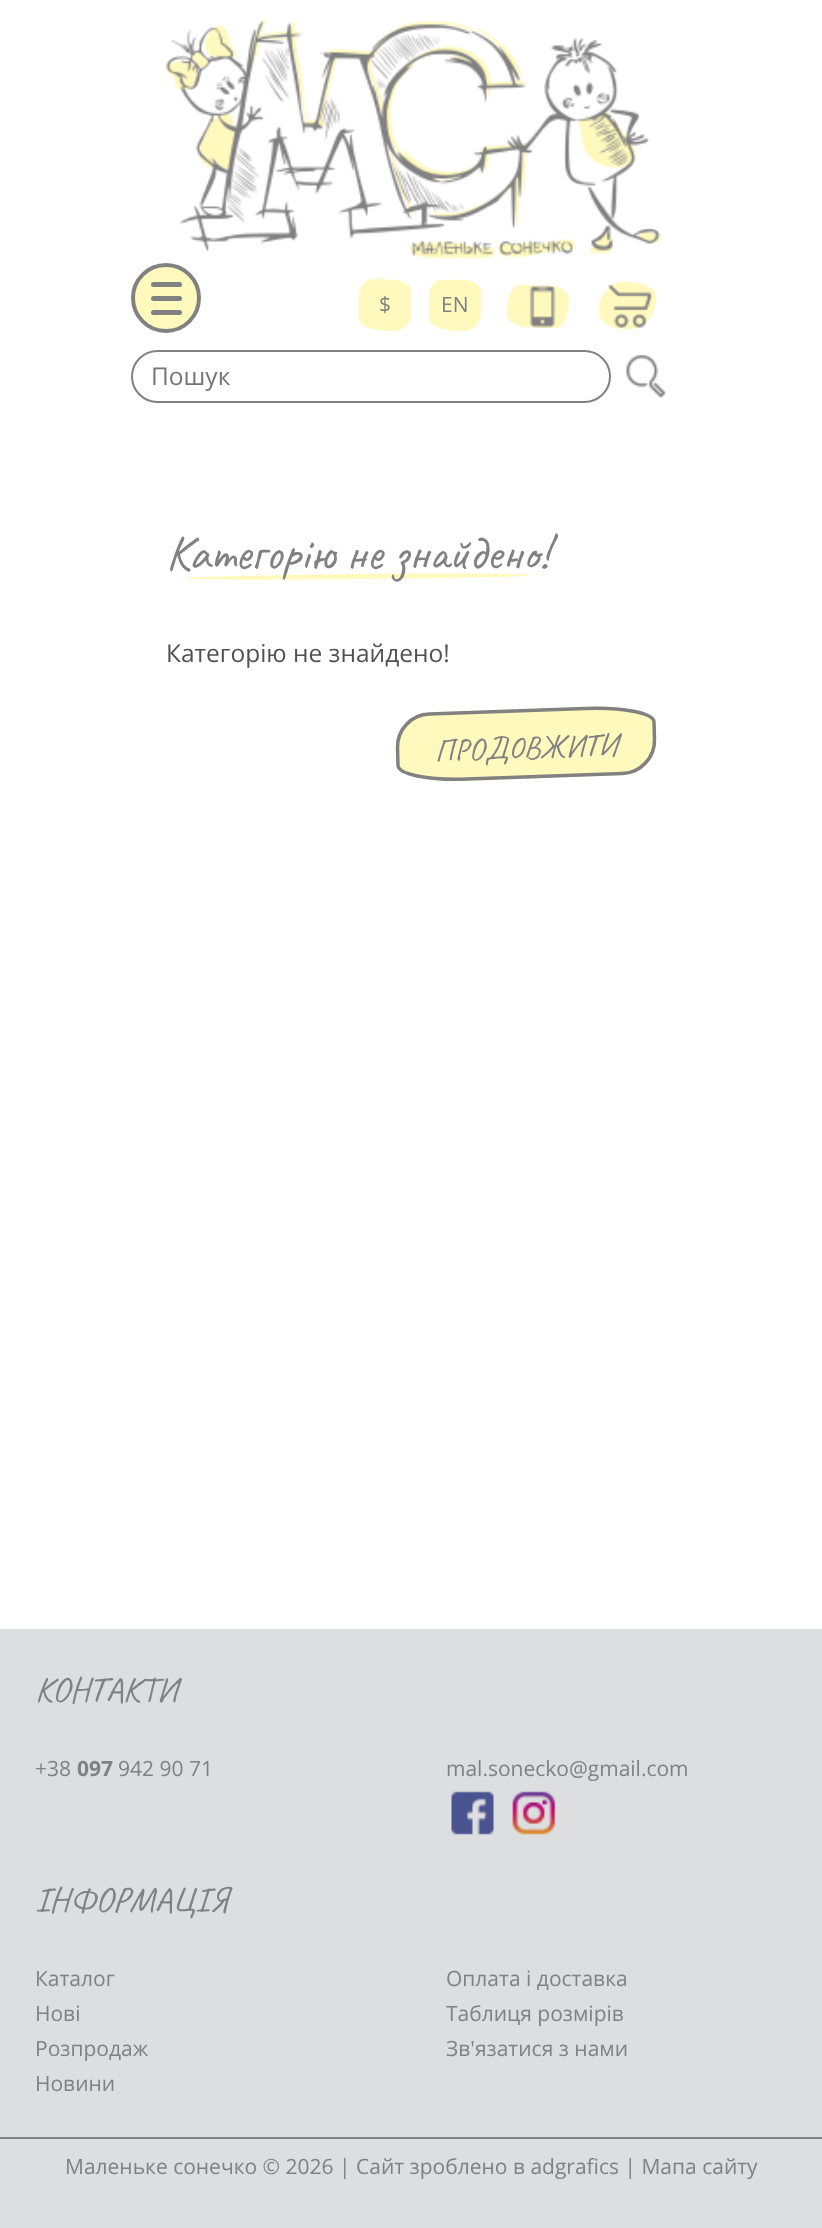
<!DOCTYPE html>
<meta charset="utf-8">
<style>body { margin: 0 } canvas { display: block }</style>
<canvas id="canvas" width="822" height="2228"></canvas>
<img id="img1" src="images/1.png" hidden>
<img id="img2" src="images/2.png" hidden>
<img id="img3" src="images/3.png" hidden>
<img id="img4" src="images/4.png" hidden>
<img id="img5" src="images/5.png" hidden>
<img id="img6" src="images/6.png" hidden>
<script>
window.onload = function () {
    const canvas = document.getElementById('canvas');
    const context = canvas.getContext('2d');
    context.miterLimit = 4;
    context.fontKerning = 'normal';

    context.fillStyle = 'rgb(255, 255, 255)';
    context.fillRect(0, 0, 822, 2228);
    context.fillStyle = 'rgb(255, 249, 189)';
    context.beginPath();
    context.moveTo(376, 278);
    context.bezierCurveTo(396, 278, 411, 283, 411, 290);
    context.lineTo(411, 313);
    context.bezierCurveTo(411, 323, 403, 331, 394, 331);
    context.bezierCurveTo(374, 331, 359, 326, 359, 319);
    context.lineTo(359, 296);
    context.bezierCurveTo(359, 286, 367, 278, 376, 278);
    context.closePath();
    context.fill();
    context.beginPath();
    context.moveTo(446, 278);
    context.bezierCurveTo(466, 278, 481, 283, 481, 290);
    context.lineTo(481, 313);
    context.bezierCurveTo(481, 323, 473, 331, 464, 331);
    context.bezierCurveTo(444, 331, 429, 326, 429, 319);
    context.lineTo(429, 296);
    context.bezierCurveTo(429, 286, 437, 278, 446, 278);
    context.closePath();
    context.fill();
    context.drawImage(document.getElementById('img1'), 164, 17, 498, 263);
    context.beginPath();
    context.arc(166, 298, 33, 0, 2 * Math.PI);
    context.fill();
    context.strokeStyle = 'rgb(129, 129, 129)';
    context.lineWidth = 4;
    context.stroke();
    context.fillStyle = 'rgb(129, 129, 129)';
    context.beginPath();
    context.roundRect(151, 282, 31, 5, 2.5);
    context.fill();
    context.beginPath();
    context.roundRect(151, 296, 31, 5, 2.5);
    context.fill();
    context.beginPath();
    context.roundRect(151, 310, 31, 5, 2.5);
    context.fill();
    context.fillStyle = 'rgb(255, 249, 189)';
    context.beginPath();
    context.moveTo(520, 285);
    context.lineTo(551, 286);
    context.bezierCurveTo(561, 286, 569, 292, 569, 299);
    context.lineTo(569, 303);
    context.bezierCurveTo(568, 317, 563, 328, 556, 328);
    context.lineTo(525, 327);
    context.bezierCurveTo(515, 326, 507, 321, 507, 314);
    context.lineTo(507, 309);
    context.bezierCurveTo(508, 295, 514, 284, 520, 285);
    context.closePath();
    context.fill();
    context.drawImage(document.getElementById('img2'), 529, 285, 27, 43);
    context.beginPath();
    context.moveTo(623, 282);
    context.lineTo(625, 282);
    context.bezierCurveTo(642, 281, 656, 288, 656, 297);
    context.bezierCurveTo(657, 314, 646, 328, 632, 329);
    context.lineTo(630, 329);
    context.bezierCurveTo(613, 330, 599, 323, 599, 313);
    context.bezierCurveTo(598, 296, 609, 282, 623, 282);
    context.closePath();
    context.fill();
    context.drawImage(document.getElementById('img3'), 608, 284, 44, 44);
    context.beginPath();
    context.roundRect(132, 351, 478, 51, 25.5);
    context.lineWidth = 2;
    context.stroke();
    context.drawImage(document.getElementById('img4'), 626, 354, 40, 44);
    context.beginPath();
    context.moveTo(358, 574);
    context.bezierCurveTo(454, 573, 531, 574, 531, 575);
    context.bezierCurveTo(531, 577, 454, 578, 358, 579);
    context.bezierCurveTo(263, 580, 185, 580, 185, 578);
    context.bezierCurveTo(185, 577, 263, 575, 358, 574);
    context.closePath();
    context.fill();
    context.beginPath();
    context.moveTo(430, 712);
    context.lineTo(585, 707);
    context.bezierCurveTo(624, 705, 655, 712, 656, 722);
    context.lineTo(656, 739);
    context.bezierCurveTo(657, 759, 642, 775, 622, 775);
    context.lineTo(467, 781);
    context.bezierCurveTo(428, 782, 397, 775, 396, 766);
    context.lineTo(396, 748);
    context.bezierCurveTo(395, 729, 410, 713, 430, 712);
    context.closePath();
    context.fill();
    context.beginPath();
    context.moveTo(429.5, 714);
    context.lineTo(585, 708.5);
    context.bezierCurveTo(622.5, 707, 653.5, 713, 654, 722);
    context.lineTo(654.5, 739.5);
    context.bezierCurveTo(655, 757.5, 640.5, 773, 622.5, 773.5);
    context.lineTo(467, 779);
    context.bezierCurveTo(429, 780.5, 398.5, 774.5, 398, 765.5);
    context.lineTo(397.5, 748);
    context.bezierCurveTo(397, 730, 411, 714.5, 429.5, 714);
    context.closePath();
    context.lineWidth = 3.5;
    context.stroke();
    context.fillStyle = 'rgb(221, 222, 224)';
    context.fillRect(0, 1629, 822, 599);
    context.drawImage(document.getElementById('img5'), 451, 1791, 43, 44);
    context.drawImage(document.getElementById('img6'), 512, 1791, 44, 44);
    context.fillStyle = 'rgb(129, 129, 129)';
    context.fillRect(0, 2137, 822, 2);
    context.font = '21px Open Sans';
    context.fillText('$', 379, 312);
    context.fillText('EN', 441, 312);
    context.font = '24.5px Open Sans';
    context.fillStyle = 'rgb(117, 117, 117)';
    context.fillText('Пошук', 151, 385);
    context.wordSpacing = '-1px';
    context.font = '49px Caveat';
    context.fillStyle = 'rgb(129, 129, 129)';
    context.fillText('Категорію не знайдено!', 166, 569);
    context.wordSpacing = '0px';
    context.font = '24.5px Open Sans';
    context.fillStyle = 'rgb(81, 81, 81)';
    context.fillText('Категорію не знайдено!', 166, 662);
    context.font = '31.5px Caveat';
    context.fillStyle = 'rgb(129, 129, 129)';
    context.save();
    context.translate(435, 761);
    context.rotate(-2 * Math.PI / 180);
    context.fillText('ПРОДОВЖИТИ', 0, 0);
    context.restore();
    context.font = '35px Caveat';
    context.fillText('КОНТАКТИ', 35, 1701);
    context.font = '21px Open Sans';
    context.fillText('+38', 35, 1776);
    context.font = 'bold 21px Open Sans';
    context.fillText('097', 77, 1776);
    context.font = '21px Open Sans';
    context.fillText('942 90 71', 118, 1776);
    context.fillText('mal.sonecko@gmail.com', 446, 1776);
    context.font = '35px Caveat';
    context.fillText('ІНФОРМАЦІЯ', 35, 1911);
    context.font = '21px Open Sans';
    context.fillText('Каталог', 35, 1986);
    context.fillText('Нові', 35, 2021);
    context.fillText('Розпродаж', 35, 2056);
    context.fillText('Новини', 35, 2091);
    context.fillText('Оплата і доставка', 446, 1986);
    context.fillText('Таблиця розмірів', 446, 2021);
    context.fillText('Зв\'язатися з нами', 446, 2056);
    context.fillText('Маленьке сонечко © 2026 | Сайт зроблено в adgrafics | Мапа сайту', 65, 2174);
};
</script>
